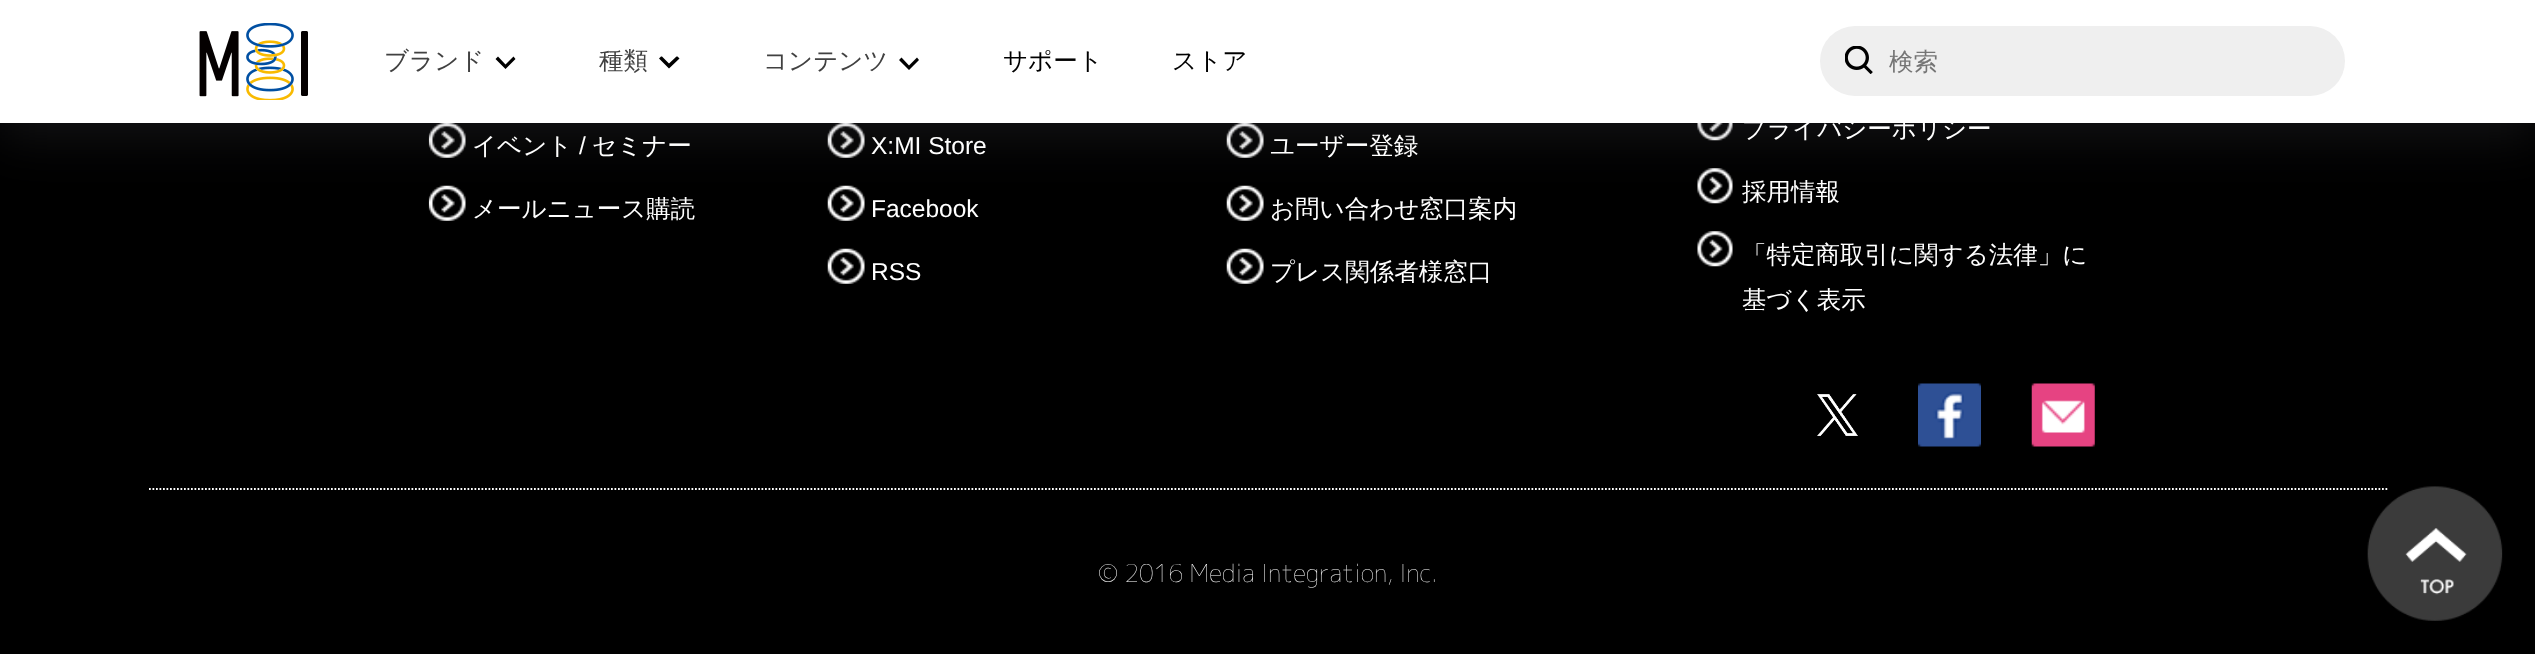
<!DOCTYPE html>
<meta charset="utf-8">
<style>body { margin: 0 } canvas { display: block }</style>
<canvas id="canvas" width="2535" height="654"></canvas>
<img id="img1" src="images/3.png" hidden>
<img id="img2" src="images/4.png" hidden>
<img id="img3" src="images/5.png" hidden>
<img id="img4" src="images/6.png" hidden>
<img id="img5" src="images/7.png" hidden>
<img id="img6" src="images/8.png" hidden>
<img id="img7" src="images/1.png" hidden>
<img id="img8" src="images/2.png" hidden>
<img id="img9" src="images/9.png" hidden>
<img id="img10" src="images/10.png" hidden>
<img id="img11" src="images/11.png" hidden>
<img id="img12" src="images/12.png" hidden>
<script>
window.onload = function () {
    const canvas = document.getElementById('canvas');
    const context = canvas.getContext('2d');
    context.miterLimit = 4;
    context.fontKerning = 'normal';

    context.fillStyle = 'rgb(0, 0, 0)';
    context.fillRect(0, 0, 2535, 654);
    context.drawImage(document.getElementById('img1'), 428, 123, 38, 35);
    context.drawImage(document.getElementById('img2'), 428, 185, 38, 36);
    context.drawImage(document.getElementById('img3'), 827, 123, 38, 35);
    context.drawImage(document.getElementById('img4'), 827, 185, 38, 36);
    context.drawImage(document.getElementById('img3'), 1226, 123, 38, 35);
    context.drawImage(document.getElementById('img4'), 1226, 185, 38, 36);
    context.drawImage(document.getElementById('img5'), 1697, 123, 36, 18);
    context.drawImage(document.getElementById('img6'), 1697, 168, 36, 36);
    context.fillStyle = 'rgba(100, 100, 111, 0.2)';
    context.filter = 'blur(25.5px)';
    context.beginPath();
    context.rect(0, 12, 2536, 123);
    context.fill();
    context.filter = 'none';
    context.fillStyle = 'rgb(255, 255, 255)';
    context.fillRect(0, 0, 2535, 123);
    context.drawImage(document.getElementById('img7'), 199, 23, 109, 77);
    context.fillStyle = 'rgb(0, 0, 0)';
    context.beginPath();
    context.moveTo(515.5, 59);
    context.lineTo(513.5, 56.5);
    context.lineTo(505.5, 64.5);
    context.lineTo(498, 56.5);
    context.lineTo(495.5, 59);
    context.lineTo(505.5, 69);
    context.closePath();
    context.fill();
    context.beginPath();
    context.moveTo(679.5, 58.5);
    context.lineTo(669, 68.5);
    context.lineTo(659, 58.5);
    context.lineTo(661, 56.5);
    context.lineTo(662, 56.5);
    context.lineTo(669, 63.5);
    context.lineTo(676.5, 56.5);
    context.lineTo(677.5, 56.5);
    context.closePath();
    context.fill();
    context.beginPath();
    context.moveTo(919, 60);
    context.lineTo(917, 57.5);
    context.lineTo(909, 65.5);
    context.lineTo(901.5, 57.5);
    context.lineTo(899, 60);
    context.lineTo(909, 70);
    context.closePath();
    context.fill();
    context.fillStyle = 'rgb(239, 239, 239)';
    context.beginPath();
    context.roundRect(1820, 26, 525, 70, 35);
    context.fill();
    context.drawImage(document.getElementById('img8'), 1845, 46, 28, 28);
    context.beginPath();
    context.moveTo(149, 489);
    context.lineTo(2389, 489);
    context.strokeStyle = 'rgb(255, 255, 255)';
    context.lineWidth = 1.8;
    context.setLineDash([1.75, 1.75]);
    context.stroke();
    context.drawImage(document.getElementById('img4'), 827, 248, 38, 36);
    context.drawImage(document.getElementById('img4'), 1226, 248, 38, 36);
    context.drawImage(document.getElementById('img6'), 1697, 231, 36, 36);
    context.drawImage(document.getElementById('img9'), 1817, 394, 41, 42);
    context.drawImage(document.getElementById('img10'), 1918, 383, 63, 64);
    context.drawImage(document.getElementById('img11'), 2031, 383, 64, 64);
    context.drawImage(document.getElementById('img12'), 2367, 486, 136, 135);
    context.font = '500 24.5px WenQuanYi Zen Hei';
    context.fillStyle = 'rgb(65, 65, 65)';
    context.fillText('ブランド', 384, 69);
    context.fillText('種類', 599, 69);
    context.fillText('コンテンツ', 763, 69);
    context.fillStyle = 'rgb(0, 0, 0)';
    context.fillText('サポート', 1003, 69);
    context.fillText('ストア', 1172, 69);
    context.fillStyle = 'rgb(117, 117, 117)';
    context.fillText('検索', 1889, 70);
    context.fillStyle = 'rgb(255, 255, 255)';
    context.fillText('イベント', 472, 154);
    context.font = '24.5px Liberation Sans';
    context.fillText('/', 579, 154);
    context.font = '500 24.5px WenQuanYi Zen Hei';
    context.fillText('セミナー', 592, 154);
    context.fillText('メールニュース購読', 472, 217);
    context.font = '24.5px Liberation Sans';
    context.fillText('X:MI Store', 871, 154);
    context.fillText('Facebook', 871, 217);
    context.fillText('RSS', 871, 280);
    context.font = '500 24.5px WenQuanYi Zen Hei';
    context.fillText('ユーザー登録', 1270, 154);
    context.fillText('お問い合わせ窓口案内', 1270, 217);
    context.fillText('プレス関係者様窓口', 1270, 280);
    context.fillText('プライバシーポリシー', 1742, 137);
    context.fillText('採用情報', 1742, 200);
    context.fillText('「特定商取引に関する法律」に', 1742, 263);
    context.fillText('基づく表示', 1742, 308);
    context.font = '100 24.5px "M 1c"';
    context.fillText('© 2016 Media Integration, Inc.', 1098, 582);
};
</script>
